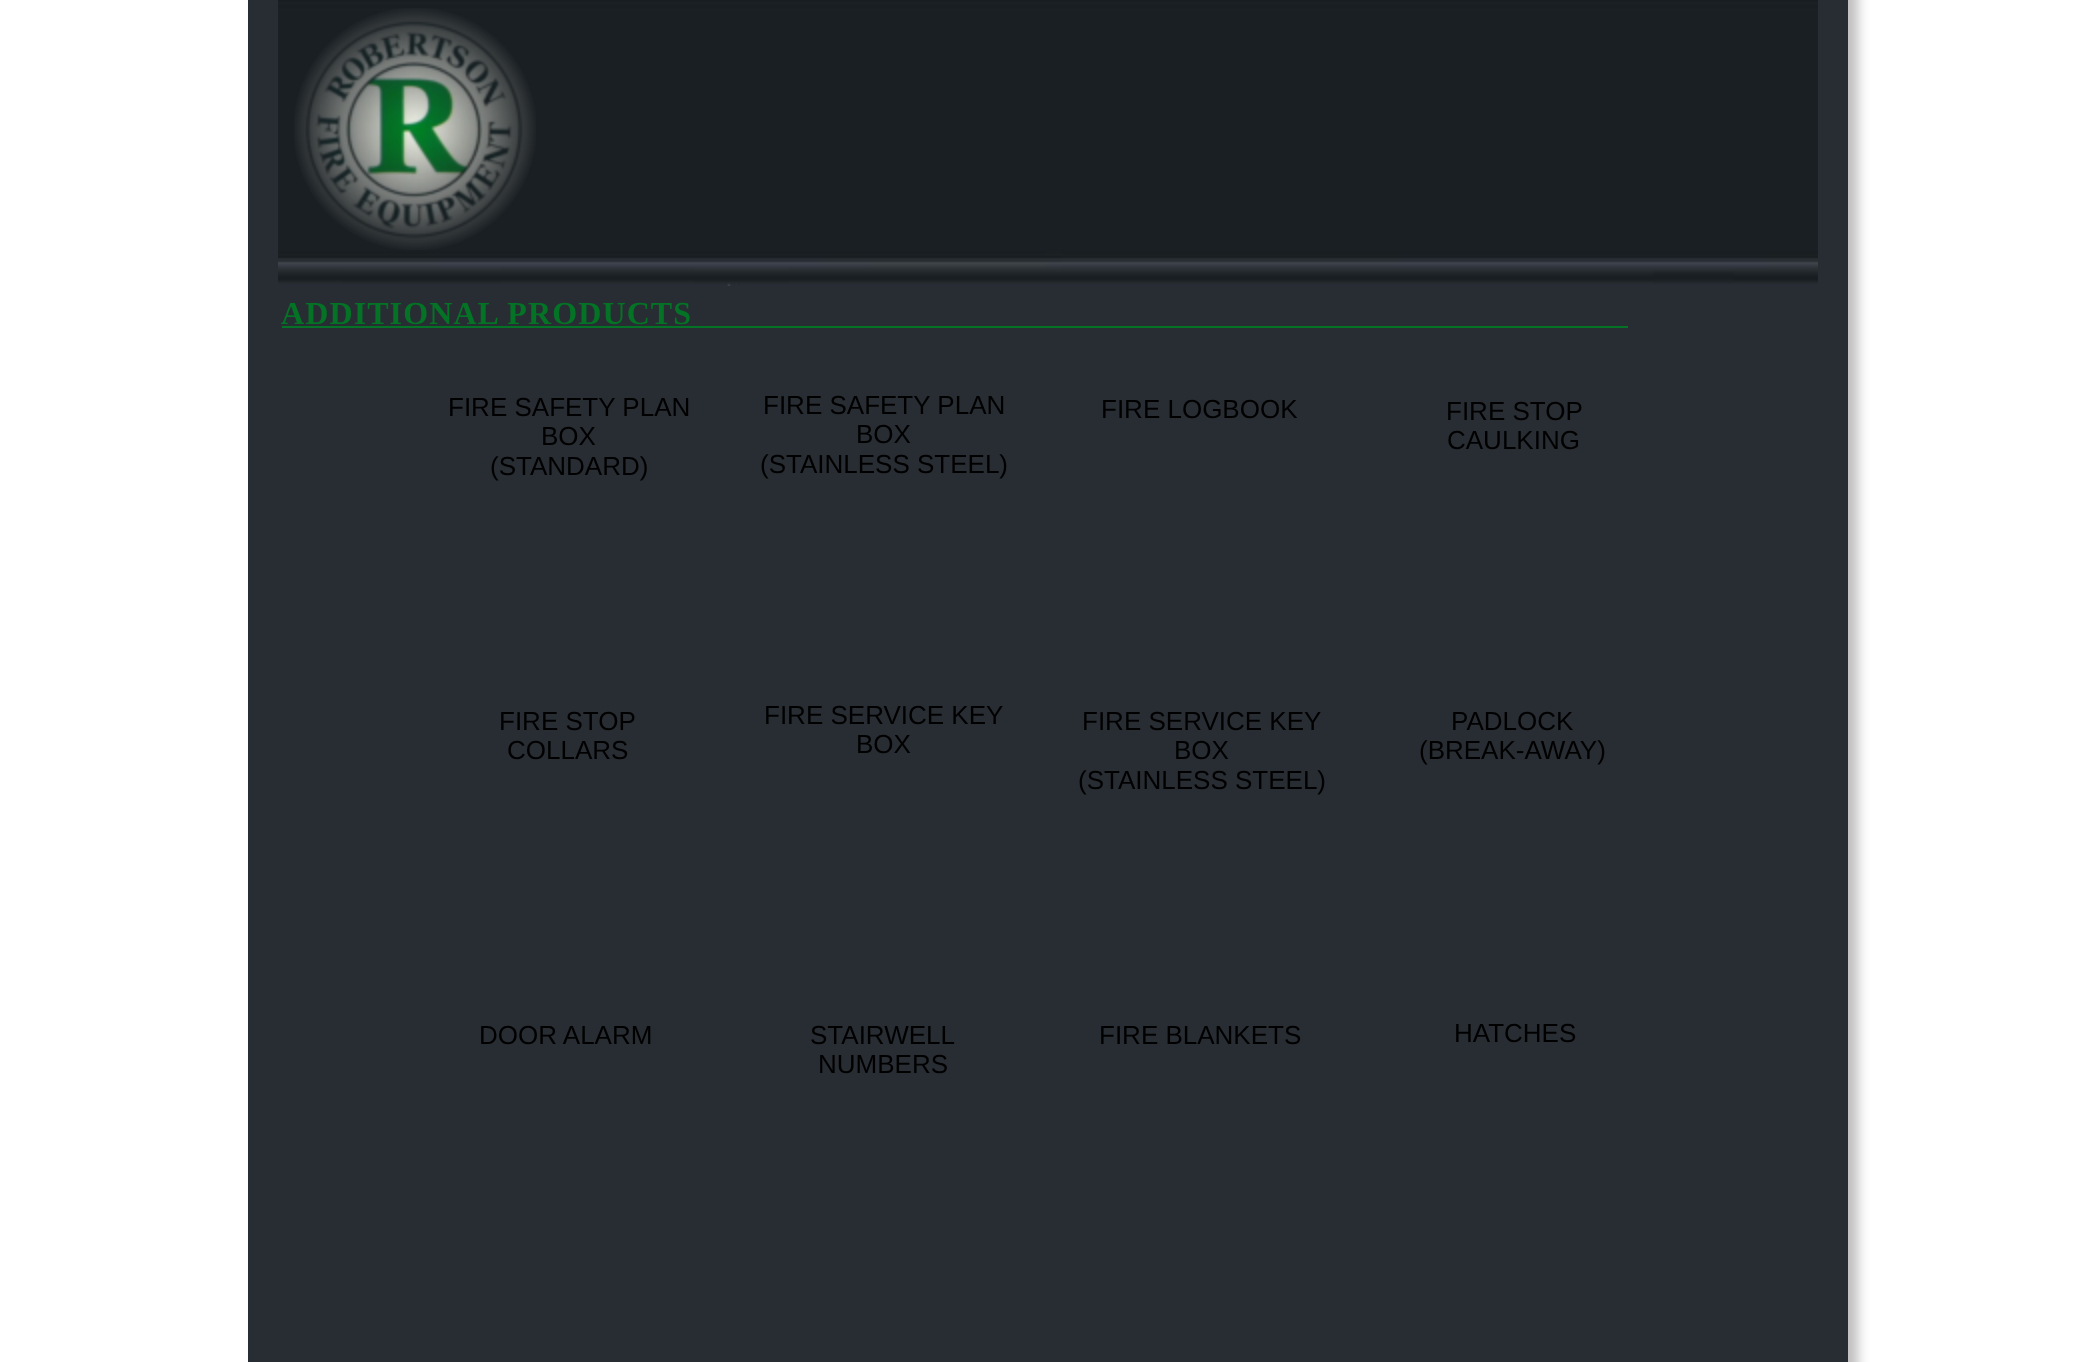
<!DOCTYPE html>
<meta charset="utf-8">
<style>body { margin: 0 } canvas { display: block }</style>
<canvas id="canvas" width="2093" height="1362"></canvas>
<img id="img1" src="images/1.png" hidden>
<img id="img2" src="images/2.png" hidden>
<script>
window.onload = function () {
    const canvas = document.getElementById('canvas');
    const context = canvas.getContext('2d');
    context.miterLimit = 4;
    context.fontKerning = 'normal';

    context.fillStyle = 'rgb(255, 255, 255)';
    context.fillRect(0, 0, 2093, 1362);
    context.fillStyle = 'rgba(0, 0, 0, 0.25)';
    context.filter = 'blur(6px)';
    context.beginPath();
    context.rect(258, -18, 1600, 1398);
    context.fill();
    context.filter = 'none';
    context.fillStyle = 'rgb(40, 45, 51)';
    context.fillRect(248, 0, 1600, 1362);
    context.drawImage(document.getElementById('img1'), 278, 0, 1540, 286);
    context.drawImage(document.getElementById('img2'), 294, 8, 242, 242);
    context.fillStyle = 'rgb(4, 115, 38)';
    context.fillRect(282, 326, 1346, 2);
    context.letterSpacing = '1.1px';
    context.font = 'bold 32px Liberation Serif';
    context.fillText('ADDITIONAL PRODUCTS', 281, 324);
    context.letterSpacing = '0px';
    context.font = '26px Liberation Sans';
    context.fillStyle = 'rgb(0, 0, 0)';
    context.fillText('FIRE SAFETY PLAN', 448, 416);
    context.fillText('BOX', 541, 445);
    context.fillText('(STANDARD)', 490, 475);
    context.fillText('FIRE SAFETY PLAN', 763, 414);
    context.fillText('BOX', 856, 443);
    context.fillText('(STAINLESS STEEL)', 760, 473);
    context.fillText('FIRE LOGBOOK', 1101, 418);
    context.fillText('FIRE STOP', 1446, 420);
    context.fillText('CAULKING', 1447, 449);
    context.fillText('FIRE STOP', 499, 730);
    context.fillText('COLLARS', 507, 759);
    context.fillText('FIRE SERVICE KEY', 764, 724);
    context.fillText('BOX', 856, 753);
    context.fillText('FIRE SERVICE KEY', 1082, 730);
    context.fillText('BOX', 1174, 759);
    context.fillText('(STAINLESS STEEL)', 1078, 789);
    context.fillText('PADLOCK', 1451, 730);
    context.fillText('(BREAK-AWAY)', 1419, 759);
    context.fillText('DOOR ALARM', 479, 1044);
    context.fillText('STAIRWELL', 810, 1044);
    context.fillText('NUMBERS', 818, 1073);
    context.fillText('FIRE BLANKETS', 1099, 1044);
    context.fillText('HATCHES', 1454, 1042);
};
</script>
